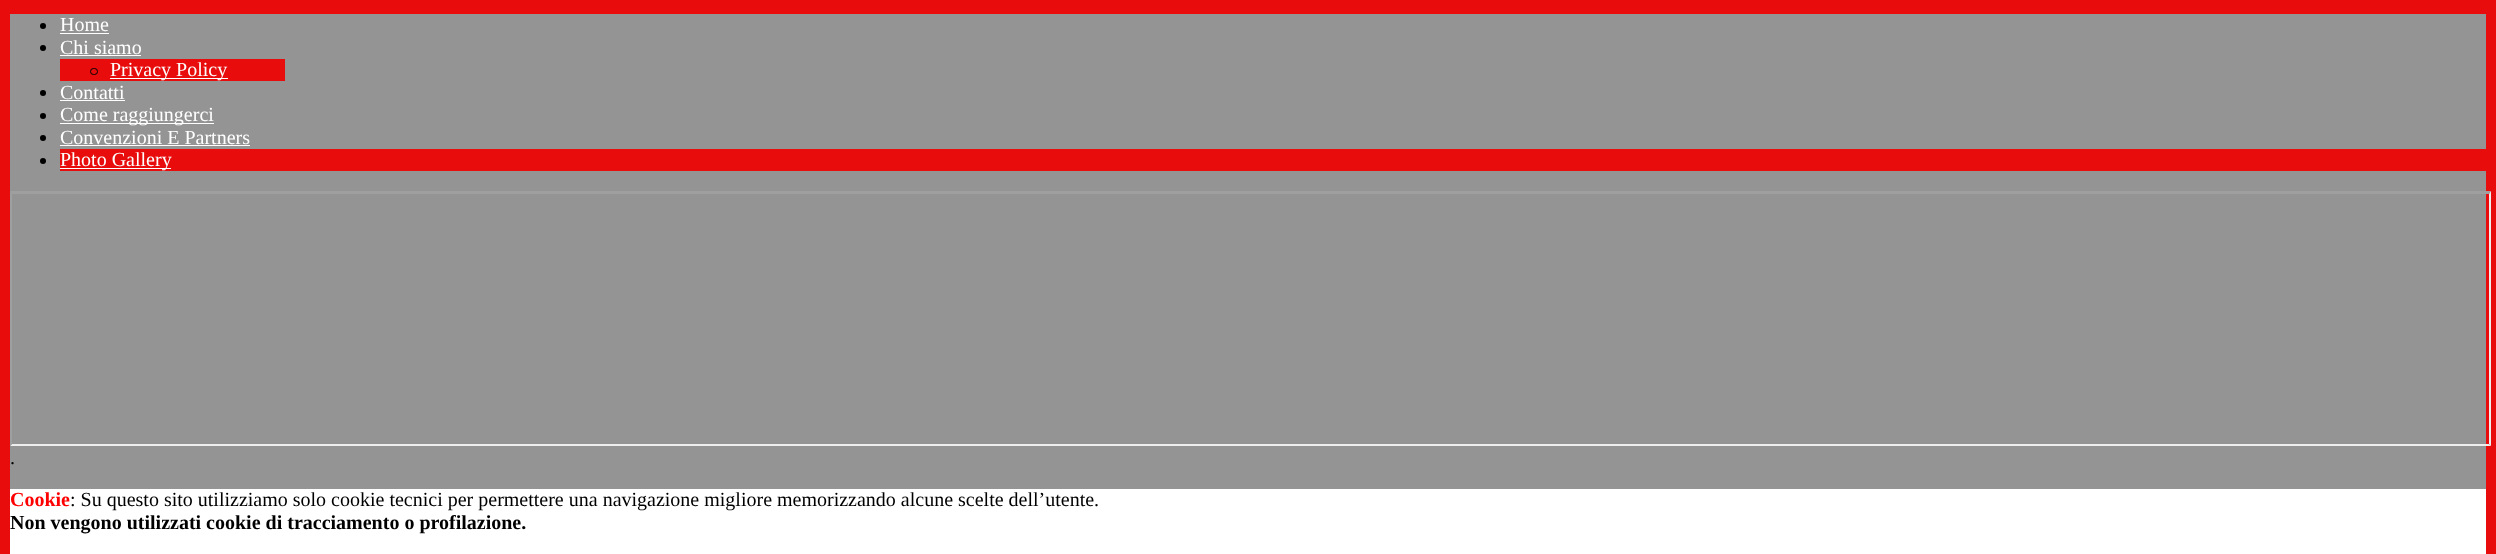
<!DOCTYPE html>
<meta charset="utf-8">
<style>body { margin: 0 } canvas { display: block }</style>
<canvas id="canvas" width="2496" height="554"></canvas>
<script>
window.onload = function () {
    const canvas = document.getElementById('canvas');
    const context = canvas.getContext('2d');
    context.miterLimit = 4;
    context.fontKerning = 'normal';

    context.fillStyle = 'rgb(232, 12, 12)';
    context.fillRect(0, 0, 2496, 554);
    context.fillStyle = 'rgb(148, 148, 148)';
    context.fillRect(10, 14, 2476, 475);
    context.fillStyle = 'rgb(0, 0, 0)';
    context.beginPath();
    context.arc(43, 26, 3, 0, 2 * Math.PI);
    context.fill();
    context.fillStyle = 'rgb(255, 255, 255)';
    context.fillRect(60, 33, 49, 1);
    context.fillStyle = 'rgb(0, 0, 0)';
    context.beginPath();
    context.arc(43, 48, 3, 0, 2 * Math.PI);
    context.fill();
    context.fillStyle = 'rgb(255, 255, 255)';
    context.fillRect(60, 55, 81, 1);
    context.fillStyle = 'rgb(232, 12, 12)';
    context.fillRect(60, 59, 225, 22);
    context.beginPath();
    context.roundRect(90.5, 68.5, 7, 6, 3);
    context.strokeStyle = 'rgb(0, 0, 0)';
    context.stroke();
    context.fillStyle = 'rgb(255, 255, 255)';
    context.fillRect(110, 78, 118, 1);
    context.fillStyle = 'rgb(0, 0, 0)';
    context.beginPath();
    context.arc(43, 93, 3, 0, 2 * Math.PI);
    context.fill();
    context.fillStyle = 'rgb(255, 255, 255)';
    context.fillRect(60, 100, 65, 1);
    context.fillStyle = 'rgb(0, 0, 0)';
    context.beginPath();
    context.arc(43, 116, 3, 0, 2 * Math.PI);
    context.fill();
    context.fillStyle = 'rgb(255, 255, 255)';
    context.fillRect(60, 123, 154, 1);
    context.fillStyle = 'rgb(0, 0, 0)';
    context.beginPath();
    context.arc(43, 138, 3, 0, 2 * Math.PI);
    context.fill();
    context.fillStyle = 'rgb(255, 255, 255)';
    context.fillRect(60, 145, 190, 1);
    context.fillStyle = 'rgb(232, 12, 12)';
    context.fillRect(60, 149, 2426, 22);
    context.fillStyle = 'rgb(0, 0, 0)';
    context.beginPath();
    context.arc(43, 161, 3, 0, 2 * Math.PI);
    context.fill();
    context.fillStyle = 'rgb(255, 255, 255)';
    context.fillRect(60, 168, 111, 1);
    context.fillStyle = 'rgb(159, 159, 159)';
    context.beginPath();
    context.moveTo(10, 191);
    context.lineTo(2491, 191);
    context.lineTo(2489, 194);
    context.lineTo(12, 194);
    context.closePath();
    context.fill();
    context.fillStyle = 'rgb(238, 238, 238)';
    context.beginPath();
    context.moveTo(2491, 191);
    context.lineTo(2491, 446);
    context.lineTo(2489, 444);
    context.lineTo(2489, 194);
    context.closePath();
    context.fill();
    context.beginPath();
    context.moveTo(2491, 446);
    context.lineTo(10, 446);
    context.lineTo(12, 444);
    context.lineTo(2489, 444);
    context.closePath();
    context.fill();
    context.fillStyle = 'rgb(159, 159, 159)';
    context.beginPath();
    context.moveTo(10, 446);
    context.lineTo(10, 191);
    context.lineTo(12, 194);
    context.lineTo(12, 444);
    context.closePath();
    context.fill();
    context.fillStyle = 'rgb(255, 255, 255)';
    context.fillRect(10, 489, 2476, 65);
    context.font = '20px Liberation Serif';
    context.fillText('Home', 60, 31);
    context.fillText('Chi siamo', 60, 54);
    context.fillText('Privacy Policy', 110, 76);
    context.fillText('Contatti', 60, 99);
    context.fillText('Come raggiungerci', 60, 121);
    context.fillText('Convenzioni E Partners', 60, 144);
    context.fillText('Photo Gallery', 60, 166);
    context.fillStyle = 'rgb(0, 0, 0)';
    context.fillText('.', 10, 464);
    context.font = 'bold 20px Liberation Serif';
    context.fillStyle = 'rgb(255, 0, 0)';
    context.fillText('Cookie', 10, 506);
    context.font = '20px Liberation Serif';
    context.fillStyle = 'rgb(0, 0, 0)';
    context.fillText(': Su questo sito utilizziamo solo cookie tecnici per permettere una navigazione migliore memorizzando alcune scelte dell’utente.', 70, 506);
    context.font = 'bold 20px Liberation Serif';
    context.fillText('Non vengono utilizzati cookie di tracciamento o profilazione.', 10, 529);
};
</script>
